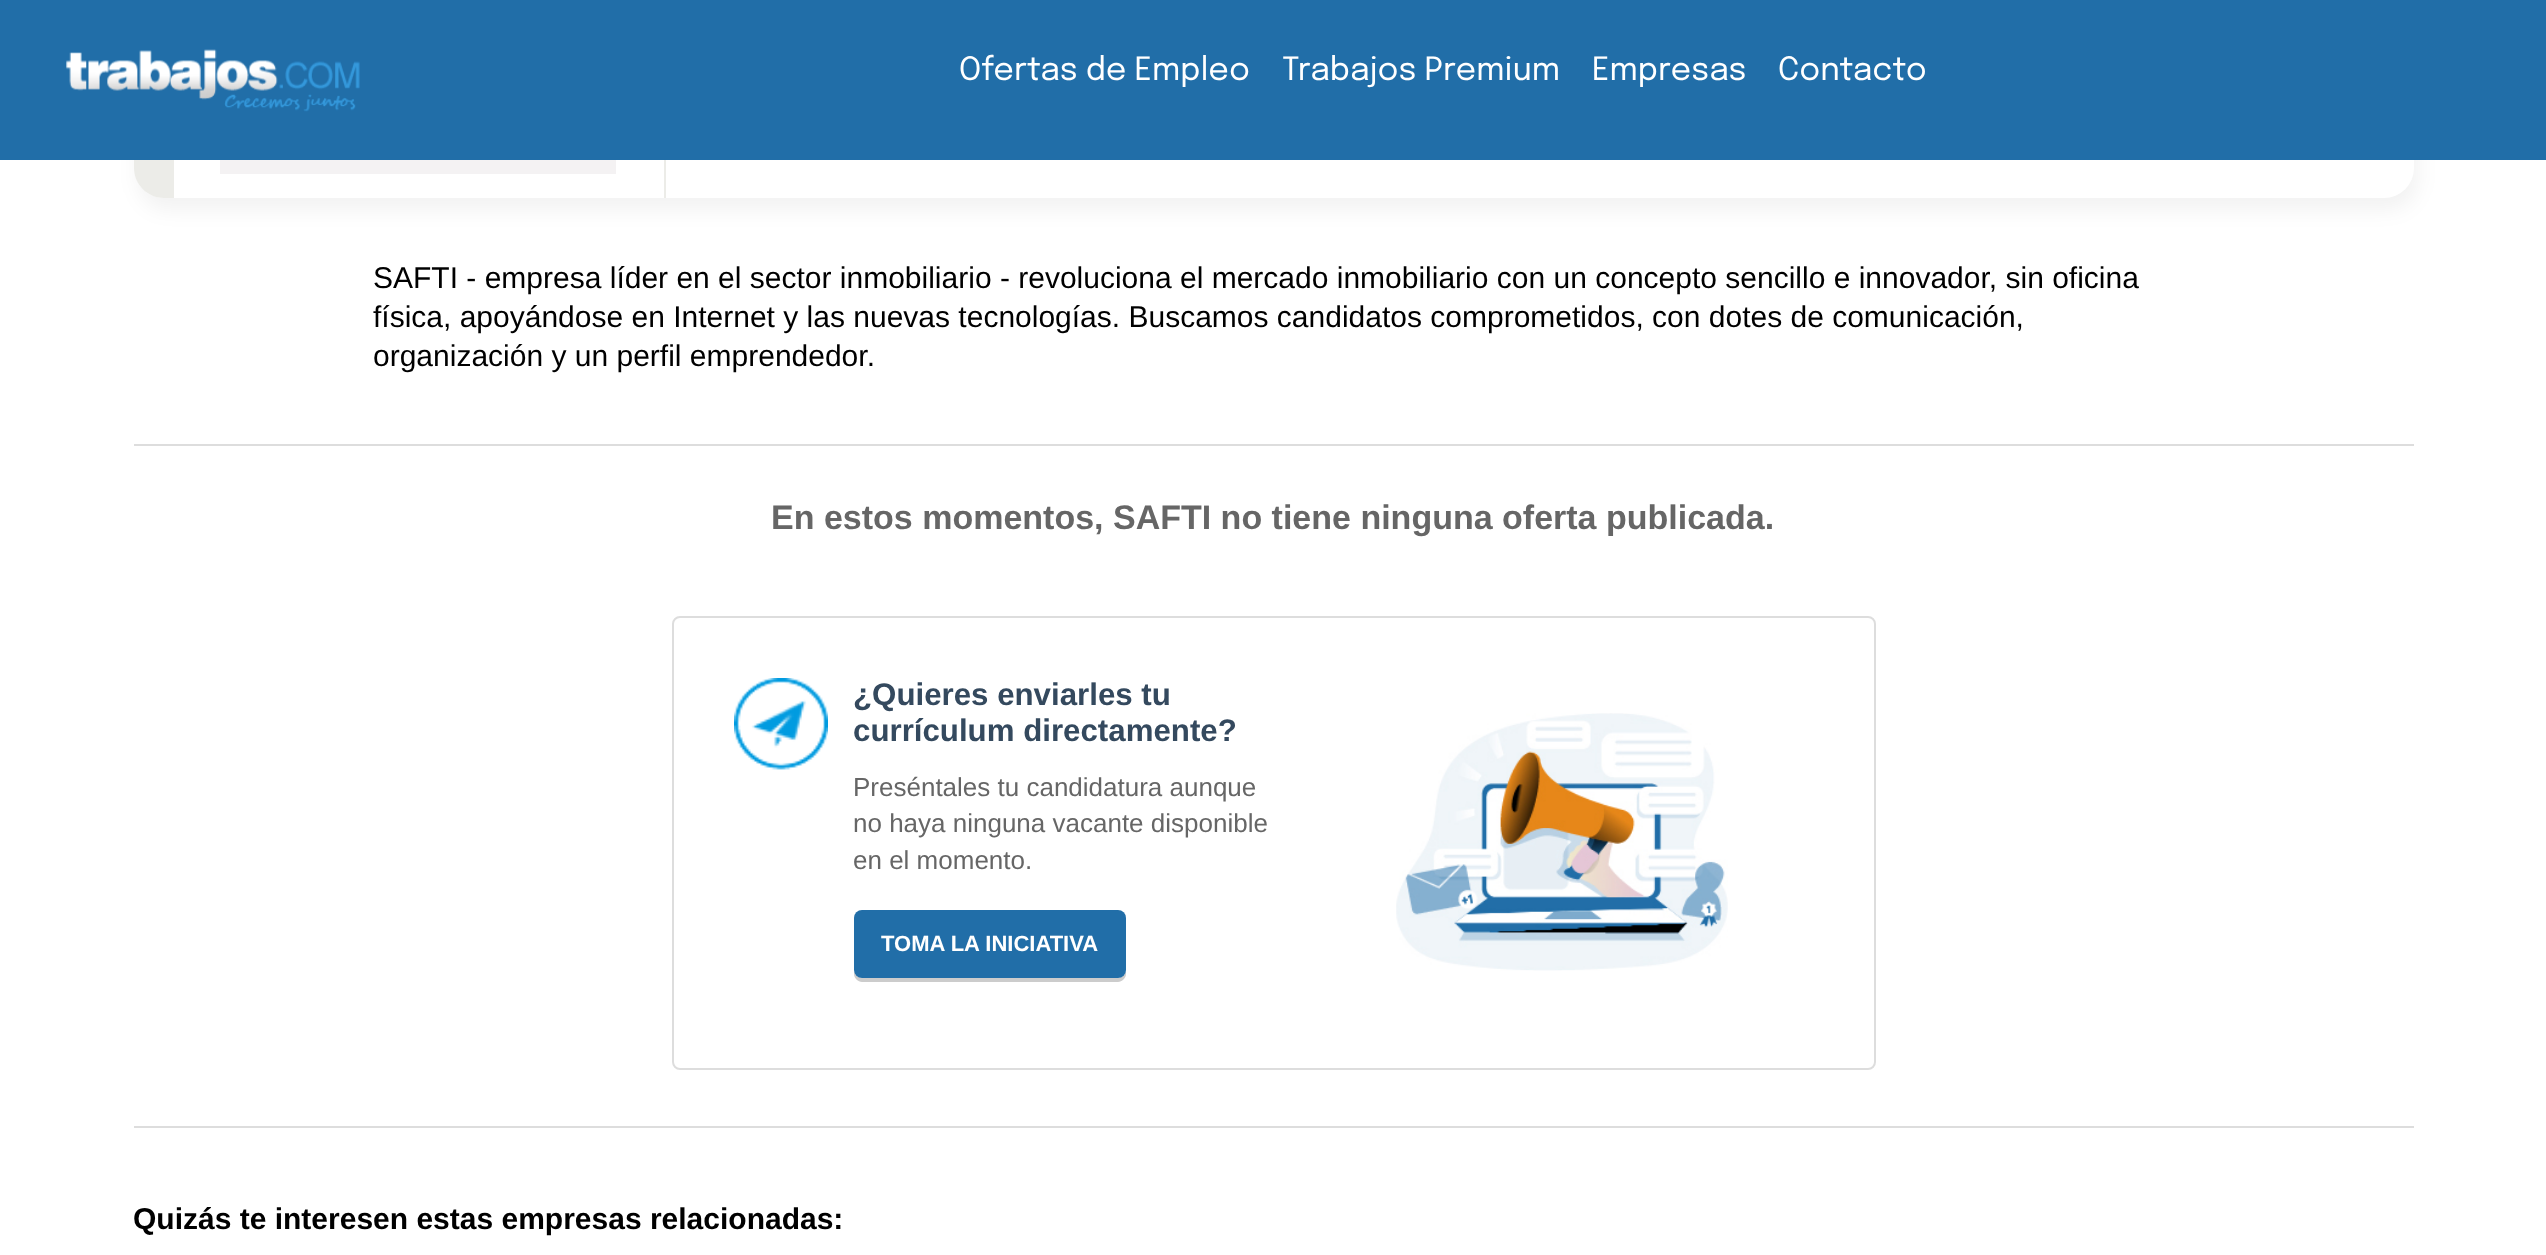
<!DOCTYPE html>
<meta charset="utf-8">
<style>body { margin: 0 } canvas { display: block }</style>
<canvas id="canvas" width="2546" height="1255"></canvas>
<img id="img1" src="images/1.png" hidden>
<img id="img2" src="images/2.png" hidden>
<img id="img3" src="images/3.png" hidden>
<img id="img4" src="images/4.png" hidden>
<script>
window.onload = function () {
    const canvas = document.getElementById('canvas');
    const context = canvas.getContext('2d');
    context.miterLimit = 4;
    context.fontKerning = 'normal';

    context.fillStyle = 'rgb(255, 255, 255)';
    context.fillRect(0, 0, 2546, 1255);
    context.fillStyle = 'rgba(0, 0, 0, 0.05)';
    context.filter = 'blur(10px)';
    context.beginPath();
    context.roundRect(138, -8, 2280, 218, 30);
    context.fill();
    context.filter = 'none';
    context.fillStyle = 'rgb(255, 255, 255)';
    context.beginPath();
    context.roundRect(134, -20, 2280, 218, 30);
    context.fill();
    context.fillStyle = 'rgb(236, 236, 232)';
    context.beginPath();
    context.moveTo(164, -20);
    context.lineTo(174, -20);
    context.lineTo(174, 198);
    context.lineTo(164, 198);
    context.bezierCurveTo(147.5, 198, 134, 184.5, 134, 168);
    context.lineTo(134, 10);
    context.bezierCurveTo(134, -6.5, 147.5, -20, 164, -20);
    context.closePath();
    context.fill();
    context.fillStyle = 'rgb(33, 110, 168)';
    context.fillRect(0, 0, 2546, 160);
    context.drawImage(document.getElementById('img1'), 66, 49, 294, 63);
    context.fillStyle = 'rgb(236, 236, 232)';
    context.fillRect(664, 160, 2, 38);
    context.drawImage(document.getElementById('img2'), 220, 160, 396, 14);
    context.fillStyle = 'rgb(221, 221, 221)';
    context.fillRect(134, 444, 2280, 2);
    context.fillRect(134, 1126, 2280, 2);
    context.beginPath();
    context.roundRect(673, 617, 1202, 452, 7);
    context.strokeStyle = 'rgb(221, 221, 221)';
    context.lineWidth = 2;
    context.stroke();
    context.drawImage(document.getElementById('img3'), 1396, 713, 332, 258);
    context.drawImage(document.getElementById('img4'), 734, 678, 94, 92);
    context.fillStyle = 'rgb(204, 204, 204)';
    context.beginPath();
    context.moveTo(854, 970);
    context.lineTo(854, 974);
    context.bezierCurveTo(854, 978, 858, 982, 862, 982);
    context.lineTo(1118, 982);
    context.bezierCurveTo(1122, 982, 1126, 978, 1126, 974);
    context.lineTo(1126, 970);
    context.bezierCurveTo(1126, 974, 1122, 978, 1118, 978);
    context.lineTo(862, 978);
    context.bezierCurveTo(858, 978, 854, 974, 854, 970);
    context.closePath();
    context.fill();
    context.fillStyle = 'rgb(33, 110, 168)';
    context.beginPath();
    context.roundRect(854, 910, 272, 68, 8);
    context.fill();
    context.font = '32px Epilogue';
    context.fillStyle = 'rgb(255, 255, 255)';
    context.fillText('Ofertas de Empleo', 959, 80);
    context.fillText('Trabajos Premium', 1282, 80);
    context.fillText('Empresas', 1592, 80);
    context.fillText('Contacto', 1778, 80);
    context.font = '30px Liberation Sans';
    context.fillStyle = 'rgb(0, 0, 0)';
    context.fillText('SAFTI - empresa líder en el sector inmobiliario - revoluciona el mercado inmobiliario con un concepto sencillo e innovador, sin oficina', 373, 288);
    context.fillText('física, apoyándose en Internet y las nuevas tecnologías. Buscamos candidatos comprometidos, con dotes de comunicación,', 373, 327);
    context.fillText('organización y un perfil emprendedor.', 373, 366);
    context.font = 'bold 34px Liberation Sans';
    context.fillStyle = 'rgb(102, 102, 102)';
    context.fillText('En estos momentos, SAFTI no tiene ninguna oferta publicada.', 771, 529);
    context.font = 'bold 31.25px Liberation Sans';
    context.fillStyle = 'rgb(52, 73, 94)';
    context.fillText('¿Quieres enviarles tu', 853, 705);
    context.fillText('currículum directamente?', 853, 741);
    context.font = '26px Liberation Sans';
    context.fillStyle = 'rgb(102, 102, 102)';
    context.fillText('Preséntales tu candidatura aunque', 853, 796);
    context.fillText('no haya ninguna vacante disponible', 853, 832);
    context.fillText('en el momento.', 853, 869);
    context.font = 'bold 22px Liberation Sans';
    context.fillStyle = 'rgb(255, 255, 255)';
    context.fillText('TOMA LA INICIATIVA', 881, 951);
    context.font = 'bold 30px Liberation Sans';
    context.fillStyle = 'rgb(0, 0, 0)';
    context.fillText('Quizás te interesen estas empresas relacionadas:', 133, 1229);
};
</script>
